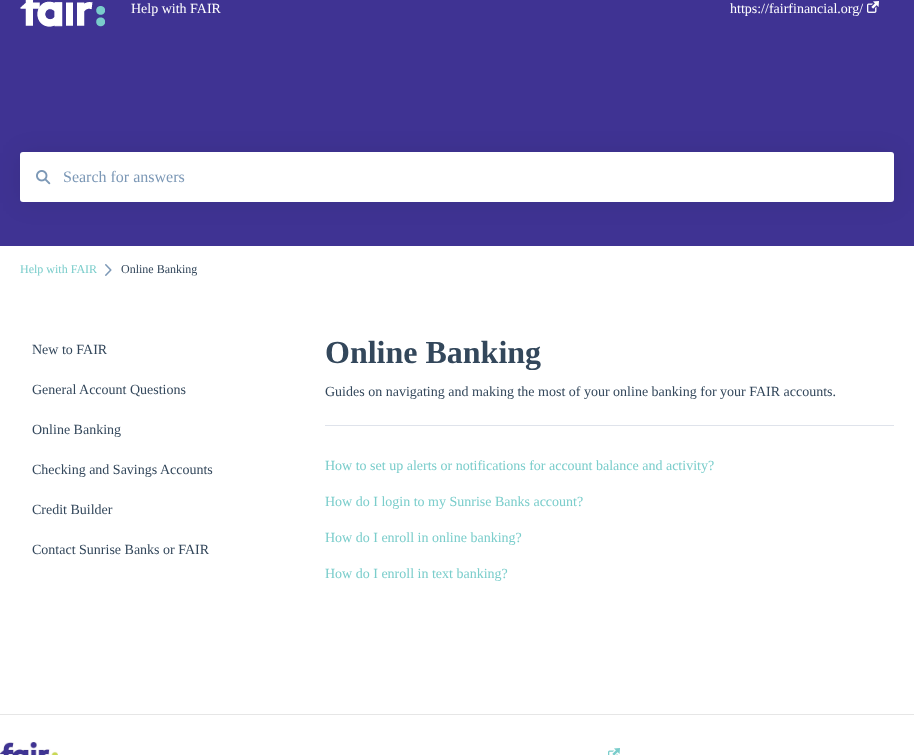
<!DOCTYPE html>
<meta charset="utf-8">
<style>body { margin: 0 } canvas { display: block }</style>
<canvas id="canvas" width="914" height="755"></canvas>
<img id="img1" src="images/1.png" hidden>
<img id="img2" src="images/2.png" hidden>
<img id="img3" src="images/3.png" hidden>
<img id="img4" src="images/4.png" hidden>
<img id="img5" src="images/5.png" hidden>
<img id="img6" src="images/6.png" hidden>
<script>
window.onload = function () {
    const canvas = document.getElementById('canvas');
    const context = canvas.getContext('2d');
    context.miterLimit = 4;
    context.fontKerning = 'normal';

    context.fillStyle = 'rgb(255, 255, 255)';
    context.fillRect(0, 0, 914, 755);
    context.fillStyle = 'rgb(63, 51, 147)';
    context.fillRect(0, 0, 914, 246);
    context.drawImage(document.getElementById('img1'), 20, 0, 85, 27);
    context.drawImage(document.getElementById('img2'), 867, 1, 12, 12);
    context.fillStyle = 'rgba(0, 0, 0, 0.08)';
    context.filter = 'blur(12px)';
    context.beginPath();
    context.roundRect(20, 153, 874, 50, 3);
    context.fill();
    context.filter = 'none';
    context.fillStyle = 'rgb(255, 255, 255)';
    context.beginPath();
    context.roundRect(20, 152, 874, 50, 3);
    context.fill();
    context.drawImage(document.getElementById('img3'), 36, 170, 15, 15);
    context.drawImage(document.getElementById('img4'), 105, 264, 7, 12);
    context.fillStyle = 'rgb(223, 227, 235)';
    context.fillRect(325, 425, 569, 1);
    context.fillStyle = 'rgb(230, 230, 230)';
    context.fillRect(0, 714, 914, 1);
    context.drawImage(document.getElementById('img5'), 0, 742, 58, 13);
    context.drawImage(document.getElementById('img6'), 608, 748, 12, 7);
    context.font = '14px Liberation Serif';
    context.fillStyle = 'rgb(255, 255, 255)';
    context.fillText('Help with FAIR', 131, 13);
    context.fillText('https://fairfinancial.org/', 730, 13);
    context.font = '16px Liberation Serif';
    context.fillStyle = 'rgb(124, 152, 182)';
    context.fillText('Search for answers', 63, 182);
    context.font = '12px Liberation Serif';
    context.fillStyle = 'rgb(122, 205, 203)';
    context.fillText('Help with FAIR', 20, 273);
    context.fillStyle = 'rgb(51, 71, 91)';
    context.fillText('Online Banking', 121, 273);
    context.font = '14px Liberation Serif';
    context.fillText('New to FAIR', 32, 354);
    context.fillText('General Account Questions', 32, 394);
    context.fillText('Online Banking', 32, 434);
    context.fillText('Checking and Savings Accounts', 32, 474);
    context.fillText('Credit Builder', 32, 514);
    context.fillText('Contact Sunrise Banks or FAIR', 32, 554);
    context.font = 'bold 32px Liberation Serif';
    context.fillText('Online Banking', 325, 363);
    context.font = '14px Liberation Serif';
    context.fillText('Guides on navigating and making the most of your online banking for your FAIR accounts.', 325, 396);
    context.fillStyle = 'rgb(122, 205, 203)';
    context.fillText('How to set up alerts or notifications for account balance and activity?', 325, 470);
    context.fillText('How do I login to my Sunrise Banks account?', 325, 506);
    context.fillText('How do I enroll in online banking?', 325, 542);
    context.fillText('How do I enroll in text banking?', 325, 578);
};
</script>
